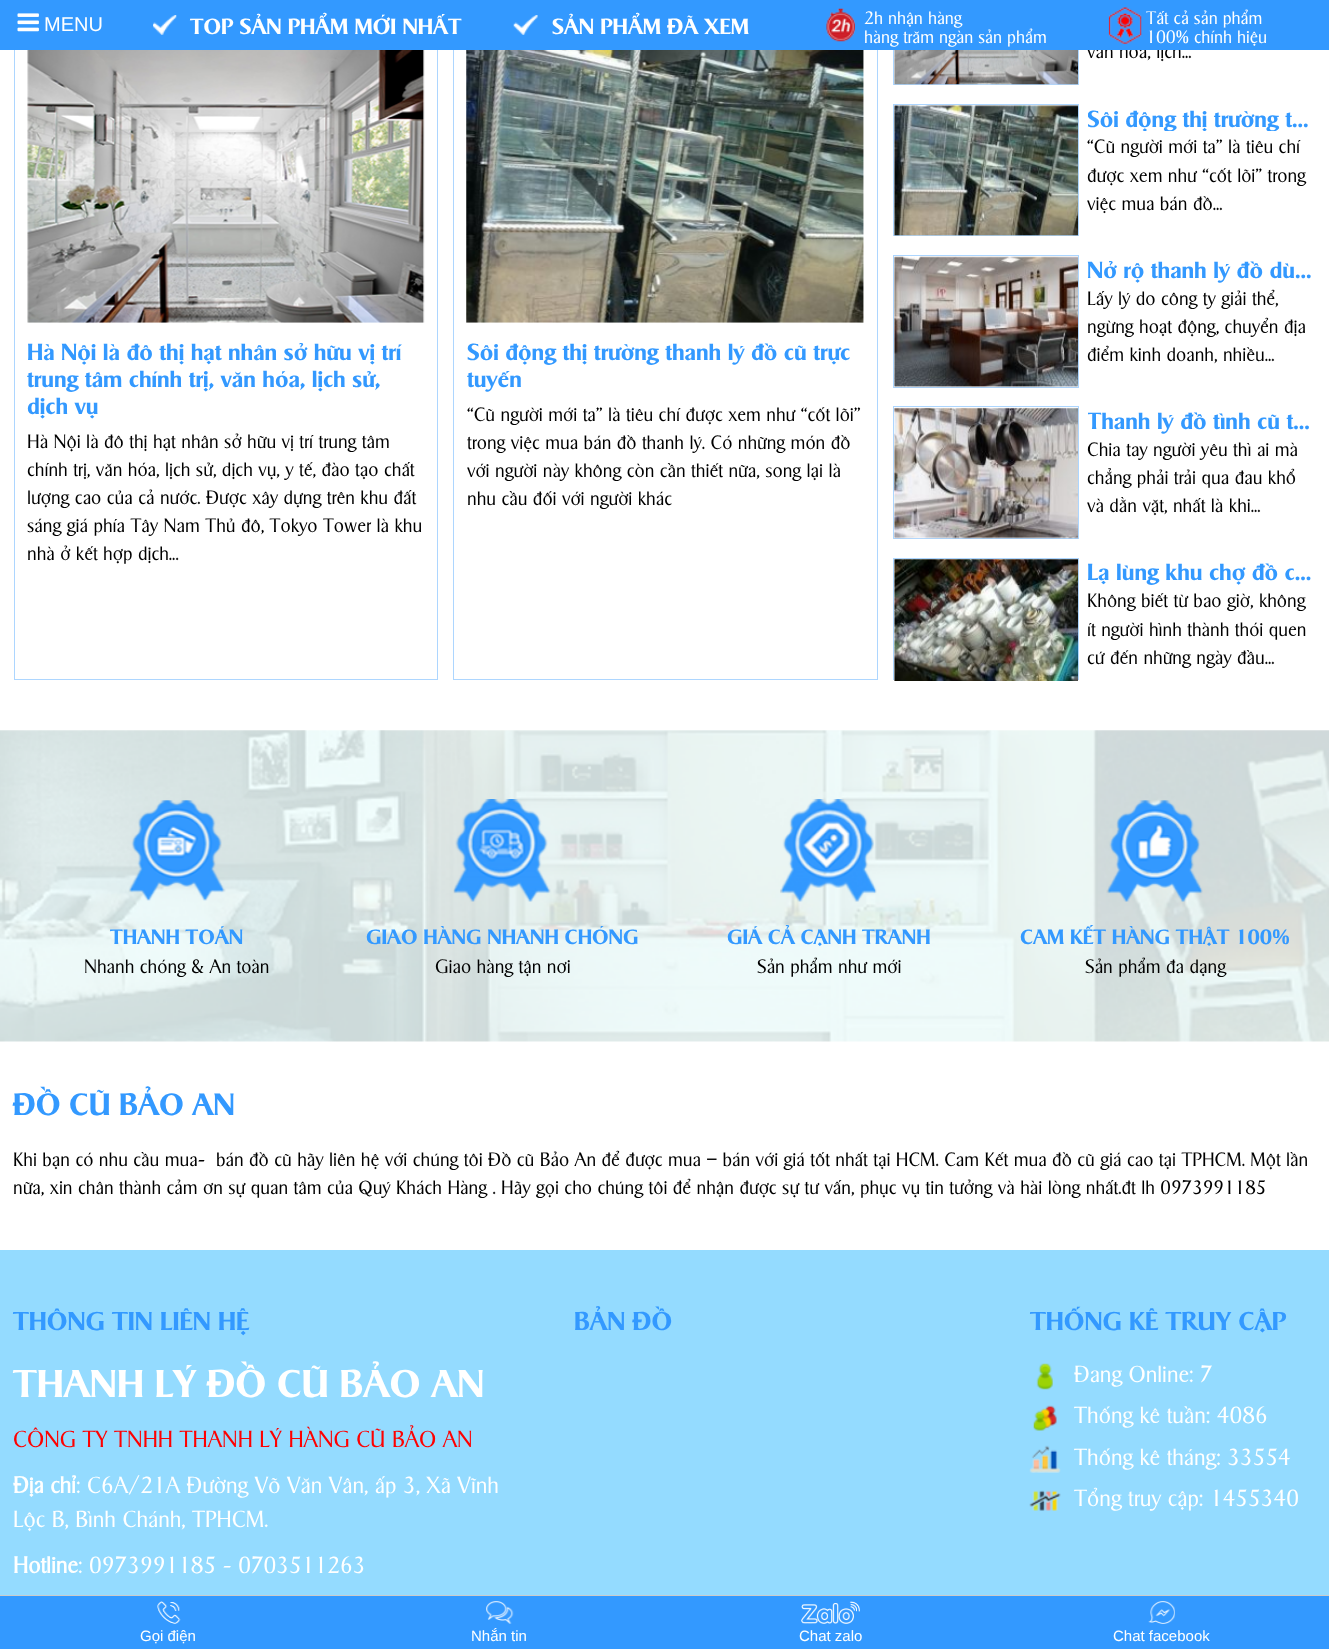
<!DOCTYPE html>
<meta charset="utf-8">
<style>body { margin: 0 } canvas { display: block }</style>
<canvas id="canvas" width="1329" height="1649"></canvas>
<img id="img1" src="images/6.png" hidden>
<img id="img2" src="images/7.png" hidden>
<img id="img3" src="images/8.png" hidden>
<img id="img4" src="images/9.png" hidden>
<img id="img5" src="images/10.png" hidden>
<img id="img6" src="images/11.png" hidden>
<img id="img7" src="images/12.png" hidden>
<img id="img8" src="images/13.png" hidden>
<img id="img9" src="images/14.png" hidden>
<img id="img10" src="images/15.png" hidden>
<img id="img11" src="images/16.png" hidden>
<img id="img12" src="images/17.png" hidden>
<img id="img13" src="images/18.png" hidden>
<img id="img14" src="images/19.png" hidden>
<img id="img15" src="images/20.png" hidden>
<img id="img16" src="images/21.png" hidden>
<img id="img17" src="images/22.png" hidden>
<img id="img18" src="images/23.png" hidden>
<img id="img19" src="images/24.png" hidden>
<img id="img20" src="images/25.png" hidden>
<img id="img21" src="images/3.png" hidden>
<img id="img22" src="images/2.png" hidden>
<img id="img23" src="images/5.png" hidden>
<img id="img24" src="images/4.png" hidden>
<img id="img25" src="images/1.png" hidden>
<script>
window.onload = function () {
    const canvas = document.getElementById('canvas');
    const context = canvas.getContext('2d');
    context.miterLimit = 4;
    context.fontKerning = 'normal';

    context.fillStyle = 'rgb(255, 255, 255)';
    context.fillRect(0, 0, 1329, 1649);
    context.strokeStyle = 'rgb(173, 214, 255)';
    context.strokeRect(14.5, 30.5, 423, 649);
    context.drawImage(document.getElementById('img1'), 27, 50, 398, 273);
    context.strokeRect(453.5, 30.5, 424, 649);
    context.drawImage(document.getElementById('img2'), 466, 50, 398, 273);
    context.strokeRect(893.5, -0.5, 185, 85);
    context.drawImage(document.getElementById('img3'), 894, 50, 184, 35);
    context.strokeRect(893.5, 104.5, 185, 131);
    context.drawImage(document.getElementById('img4'), 894, 105, 184, 131);
    context.strokeRect(893.5, 255.5, 185, 132);
    context.drawImage(document.getElementById('img5'), 894, 256, 184, 132);
    context.strokeRect(893.5, 406.5, 185, 132);
    context.drawImage(document.getElementById('img6'), 894, 407, 184, 132);
    context.save();
    context.beginPath();
    context.rect(893, 30, 423, 650);
    context.clip();
    context.strokeRect(893.5, 558.5, 185, 131);
    context.restore();
    context.drawImage(document.getElementById('img7'), 894, 559, 184, 122);
    context.drawImage(document.getElementById('img8'), 0, 730, 1329, 312);
    context.drawImage(document.getElementById('img9'), 128, 800, 98, 101);
    context.drawImage(document.getElementById('img10'), 453, 799, 98, 103);
    context.drawImage(document.getElementById('img11'), 780, 799, 97, 103);
    context.drawImage(document.getElementById('img12'), 1106, 800, 97, 102);
    context.fillStyle = 'rgb(148, 219, 255)';
    context.fillRect(0, 1250, 1329, 345);
    context.drawImage(document.getElementById('img13'), 1036, 1363, 17, 27);
    context.drawImage(document.getElementById('img14'), 1033, 1405, 24, 26);
    context.drawImage(document.getElementById('img15'), 1029, 1445, 32, 28);
    context.drawImage(document.getElementById('img16'), 1029, 1490, 32, 21);
    context.fillStyle = 'rgb(51, 153, 255)';
    context.fillRect(0, 1596, 1329, 53);
    context.fillStyle = 'rgb(203, 203, 203)';
    context.fillRect(0, 1595, 1329, 1);
    context.drawImage(document.getElementById('img17'), 157, 1601, 24, 23);
    context.drawImage(document.getElementById('img18'), 486, 1601, 28, 23);
    context.drawImage(document.getElementById('img19'), 801, 1601, 59, 23);
    context.drawImage(document.getElementById('img20'), 1148, 1601, 27, 23);
    context.font = '600 22.5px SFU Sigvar';
    context.fillStyle = 'rgb(51, 153, 255)';
    context.fillText('Hà Nội là đô thị hạt nhân sở hữu vị trí', 27, 360);
    context.fillText('trung tâm chính trị, văn hóa, lịch sử,', 27, 387);
    context.fillText('dịch vụ', 27, 414);
    context.font = '300 18.75px SFU Sigvar';
    context.fillStyle = 'rgb(0, 0, 0)';
    context.fillText('Hà Nội là đô thị hạt nhân sở hữu vị trí trung tâm', 27, 448);
    context.fillText('chính trị, văn hóa, lịch sử, dịch vụ, y tế, đào tạo chất', 27, 476);
    context.fillText('lượng cao của cả nước. Được xây dựng trên khu đất', 27, 504);
    context.fillText('sáng giá phía Tây Nam Thủ đô, Tokyo Tower là khu', 27, 532);
    context.fillText('nhà ở kết hợp dịch...', 27, 560);
    context.font = '600 22.5px SFU Sigvar';
    context.fillStyle = 'rgb(51, 153, 255)';
    context.fillText('Sôi động thị trường thanh lý đồ cũ trực', 467, 360);
    context.fillText('tuyến', 467, 387);
    context.font = '300 18.75px SFU Sigvar';
    context.fillStyle = 'rgb(0, 0, 0)';
    context.fillText('“Cũ người mới ta” là tiêu chí được xem như “cốt lõi”', 467, 421);
    context.fillText('trong việc mua bán đồ thanh lý. Có những món đồ', 467, 449);
    context.fillText('với người này không còn cần thiết nữa, song lại là', 467, 477);
    context.fillText('nhu cầu đối với người khác', 467, 505);
    context.fillText('văn hóa, lịch...', 1087, 58);
    context.fillStyle = 'rgb(51, 153, 255)';
    context.fillRect(0, 0, 1329, 50);
    context.font = '600 21.25px SFU Sigvar';
    context.fillStyle = 'rgb(255, 255, 255)';
    context.fillText('SẢN PHẨM ĐÃ XEM', 552, 34);
    context.drawImage(document.getElementById('img21'), 513, 15, 25, 20);
    context.fillText('TOP SẢN PHẨM MỚI NHẤT', 190, 34);
    context.drawImage(document.getElementById('img22'), 153, 15, 24, 20);
    context.font = '300 17.5px SFU Sigvar';
    context.fillText('100% chính hiệu', 1146, 43);
    context.fillText('Tất cả sản phẩm', 1146, 24);
    context.drawImage(document.getElementById('img23'), 1108, 7, 34, 37);
    context.fillText('hàng trăm ngàn sản phẩm', 864, 43);
    context.fillText('2h nhận hàng', 864, 24);
    context.drawImage(document.getElementById('img24'), 826, 8, 29, 34);
    context.font = '20px Liberation Sans';
    context.fillText('MENU', 44, 31);
    context.drawImage(document.getElementById('img25'), 17, 13, 22, 19);
    context.save();
    context.beginPath();
    context.rect(1088, 104, 228, 27);
    context.clip();
    context.font = '600 22.5px SFU Sigvar';
    context.fillStyle = 'rgb(51, 153, 255)';
    context.fillText('Sôi động thị trường t…', 1087, 127);
    context.restore();
    context.font = '300 18.75px SFU Sigvar';
    context.fillStyle = 'rgb(0, 0, 0)';
    context.fillText('“Cũ người mới ta” là tiêu chí', 1087, 153);
    context.fillText('được xem như “cốt lõi” trong', 1087, 182);
    context.fillText('việc mua bán đồ...', 1087, 210);
    context.font = '600 22.5px SFU Sigvar';
    context.fillStyle = 'rgb(51, 153, 255)';
    context.fillText('Nở rộ thanh lý đồ dù…', 1087, 278);
    context.font = '300 18.75px SFU Sigvar';
    context.fillStyle = 'rgb(0, 0, 0)';
    context.fillText('Lấy lý do công ty giải thể,', 1087, 305);
    context.fillText('ngừng hoạt động, chuyển địa', 1087, 333);
    context.fillText('điểm kinh doanh, nhiều...', 1087, 361);
    context.save();
    context.beginPath();
    context.rect(1088, 406, 228, 28);
    context.clip();
    context.font = '600 22.5px SFU Sigvar';
    context.fillStyle = 'rgb(51, 153, 255)';
    context.fillText('Thanh lý đồ tình cũ t…', 1087, 429);
    context.restore();
    context.fillText('Chia tay người yêu thì ai mà', 1087, 456);
    context.fillText('chẳng phải trải qua đau khổ', 1087, 484);
    context.fillText('và dằn vặt, nhất là khi...', 1087, 512);
    context.font = '600 22.5px SFU Sigvar';
    context.fillStyle = 'rgb(51, 153, 255)';
    context.fillText('Lạ lùng khu chợ đồ c…', 1087, 580);
    context.font = '300 18.75px SFU Sigvar';
    context.fillStyle = 'rgb(0, 0, 0)';
    context.fillText('Không biết từ bao giờ, không', 1087, 607);
    context.fillText('ít người hình thành thói quen', 1087, 636);
    context.fillText('cứ đến những ngày đầu...', 1087, 664);
    context.font = '600 20px SFU Sigvar';
    context.fillStyle = 'rgb(51, 153, 255)';
    context.fillText('THANH TOÁN', 110, 944);
    context.font = '300 18.75px SFU Sigvar';
    context.fillStyle = 'rgb(0, 0, 0)';
    context.fillText('Nhanh chóng & An toàn', 84, 973);
    context.font = '600 20px SFU Sigvar';
    context.fillStyle = 'rgb(51, 153, 255)';
    context.fillText('GIAO HÀNG NHANH CHÓNG', 366, 944);
    context.font = '300 18.75px SFU Sigvar';
    context.fillStyle = 'rgb(0, 0, 0)';
    context.fillText('Giao hàng tận nơi', 435, 973);
    context.font = '600 20px SFU Sigvar';
    context.fillStyle = 'rgb(51, 153, 255)';
    context.fillText('GIÁ CẢ CẠNH TRANH', 727, 944);
    context.font = '300 18.75px SFU Sigvar';
    context.fillStyle = 'rgb(0, 0, 0)';
    context.fillText('Sản phẩm như mới', 757, 973);
    context.font = '600 20px SFU Sigvar';
    context.fillStyle = 'rgb(51, 153, 255)';
    context.fillText('CAM KẾT HÀNG THẬT 100%', 1020, 944);
    context.font = '300 18.75px SFU Sigvar';
    context.fillStyle = 'rgb(0, 0, 0)';
    context.fillText('Sản phẩm đa dạng', 1085, 973);
    context.font = '600 30px SFU Sigvar';
    context.fillStyle = 'rgb(51, 153, 255)';
    context.fillText('ĐỒ CŨ BẢO AN', 13, 1115);
    context.font = '300 18.75px SFU Sigvar';
    context.fillStyle = 'rgb(0, 0, 0)';
    context.fillText('Khi bạn có nhu cầu mua-  bán đồ cũ hãy liên hệ với chúng tôi Đồ cũ Bảo An để được mua – bán với giá tốt nhất tại HCM. Cam Kết mua đồ cũ giá cao tại TPHCM. Một lần', 13, 1166);
    context.fillText('nữa, xin chân thành cảm ơn sự quan tâm của Quý Khách Hàng . Hãy gọi cho chúng tôi để nhận được sự tư vấn, phục vụ tin tưởng và hài lòng nhất.đt lh 0973991185', 13, 1194);
    context.font = '600 25px SFU Sigvar';
    context.fillStyle = 'rgb(51, 153, 255)';
    context.fillText('THÔNG TIN LIÊN HỆ', 13, 1330);
    context.font = '600 37.5px SFU Sigvar';
    context.fillStyle = 'rgb(255, 255, 255)';
    context.fillText('THANH LÝ ĐỒ CŨ BẢO AN', 13, 1397);
    context.font = '300 22.5px SFU Sigvar';
    context.fillStyle = 'rgb(255, 0, 0)';
    context.fillText('CÔNG TY TNHH THANH LÝ HÀNG CŨ BẢO AN', 13, 1447);
    context.font = 'bold 22.5px SFU Sigvar';
    context.fillStyle = 'rgb(255, 255, 255)';
    context.fillText('Địa chỉ', 13, 1493);
    context.font = '300 22.5px SFU Sigvar';
    context.fillText(': C6A/21A Đường Võ Văn Vân, ấp 3, Xã Vĩnh', 76, 1493);
    context.fillText('Lộc B, Bình Chánh, TPHCM.', 13, 1527);
    context.font = 'bold 22.5px SFU Sigvar';
    context.fillText('Hotline', 13, 1573);
    context.font = '300 22.5px SFU Sigvar';
    context.fillText(': 0973991185 - 0703511263', 78, 1573);
    context.font = '600 25px SFU Sigvar';
    context.fillStyle = 'rgb(51, 153, 255)';
    context.fillText('BẢN ĐỒ', 574, 1330);
    context.fillText('THỐNG KÊ TRUY CẬP', 1030, 1330);
    context.font = '300 22.5px SFU Sigvar';
    context.fillStyle = 'rgb(255, 255, 255)';
    context.fillText('Đang Online: 7', 1074, 1382);
    context.fillText('Thống kê tuần: 4086', 1074, 1423);
    context.fillText('Thống kê tháng: 33554', 1074, 1465);
    context.fillText('Tổng truy cập: 1455340', 1074, 1506);
    context.font = '15px Liberation Sans';
    context.fillText('Gọi điện', 140, 1641);
    context.fillText('Nhắn tin', 471, 1641);
    context.fillText('Chat zalo', 799, 1641);
    context.fillText('Chat facebook', 1113, 1641);
};
</script>
